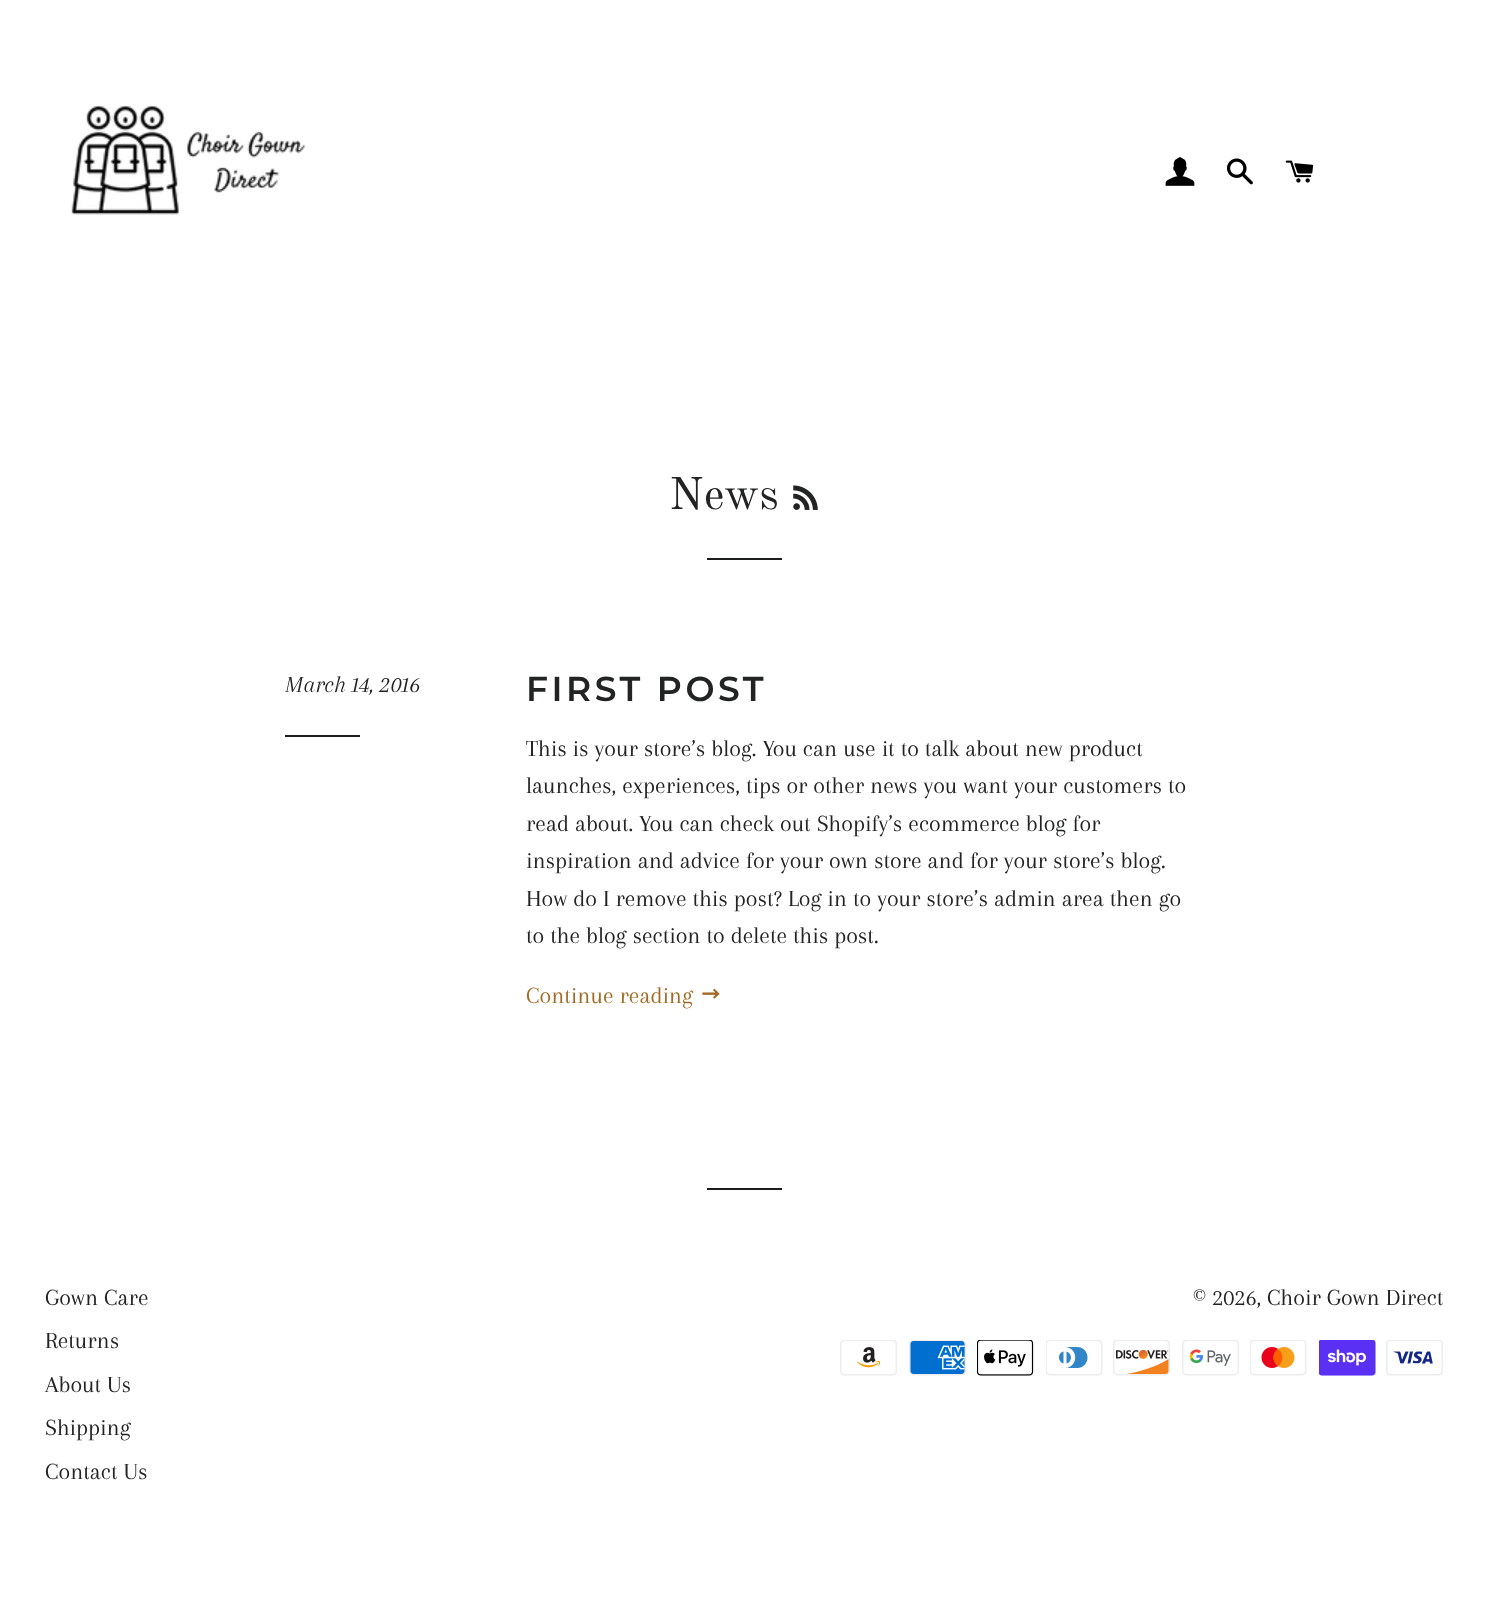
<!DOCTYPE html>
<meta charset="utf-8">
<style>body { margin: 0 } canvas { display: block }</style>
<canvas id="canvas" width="1487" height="1599"></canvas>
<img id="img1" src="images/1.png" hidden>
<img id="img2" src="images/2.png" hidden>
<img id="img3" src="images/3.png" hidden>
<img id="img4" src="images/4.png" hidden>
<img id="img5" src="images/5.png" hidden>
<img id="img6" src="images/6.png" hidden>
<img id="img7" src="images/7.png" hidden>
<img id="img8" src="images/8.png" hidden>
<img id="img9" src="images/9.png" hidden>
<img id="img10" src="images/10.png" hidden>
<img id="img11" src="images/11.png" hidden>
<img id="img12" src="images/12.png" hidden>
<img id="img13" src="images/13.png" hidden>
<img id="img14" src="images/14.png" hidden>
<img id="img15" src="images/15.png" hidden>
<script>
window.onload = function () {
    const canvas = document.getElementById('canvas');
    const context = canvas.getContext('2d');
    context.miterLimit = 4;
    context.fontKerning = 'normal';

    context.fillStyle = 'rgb(255, 255, 255)';
    context.fillRect(0, 0, 1487, 1599);
    context.drawImage(document.getElementById('img1'), 71, 105, 235, 110);
    context.drawImage(document.getElementById('img2'), 1165, 157, 30, 29);
    context.drawImage(document.getElementById('img3'), 1226, 158, 27, 27);
    context.drawImage(document.getElementById('img4'), 1285, 160, 29, 23);
    context.drawImage(document.getElementById('img5'), 793, 485, 25, 25);
    context.fillStyle = 'rgb(28, 29, 29)';
    context.fillRect(707, 558, 75, 2);
    context.fillRect(285, 735, 75, 2);
    context.drawImage(document.getElementById('img6'), 702, 988, 18, 11);
    context.fillRect(707, 1188, 75, 2);
    context.drawImage(document.getElementById('img7'), 840, 1340, 57, 36);
    context.drawImage(document.getElementById('img8'), 909, 1340, 57, 36);
    context.drawImage(document.getElementById('img9'), 977, 1340, 57, 36);
    context.drawImage(document.getElementById('img10'), 1046, 1340, 57, 36);
    context.drawImage(document.getElementById('img11'), 1113, 1340, 57, 36);
    context.drawImage(document.getElementById('img12'), 1182, 1340, 57, 36);
    context.drawImage(document.getElementById('img13'), 1250, 1340, 57, 36);
    context.drawImage(document.getElementById('img14'), 1319, 1340, 57, 36);
    context.drawImage(document.getElementById('img15'), 1386, 1340, 57, 36);
    context.font = '45px Old Standard TT';
    context.fillStyle = 'rgb(34, 35, 35)';
    context.fillText('News', 669, 509);
    context.font = 'italic 24px Arapey';
    context.fillText('March 14, 2016', 285, 692);
    context.letterSpacing = '3.5px';
    context.font = '600 34.5px Montserrat';
    context.fillText('FIRST POST', 526, 701);
    context.letterSpacing = '0px';
    context.font = '24px Arapey';
    context.fillText('This is your store’s blog. You can use it to talk about new product', 526, 756);
    context.fillText('launches, experiences, tips or other news you want your customers to', 526, 793);
    context.fillText('read about. You can check out Shopify’s ecommerce blog for', 526, 831);
    context.fillText('inspiration and advice for your own store and for your store’s blog.', 526, 868);
    context.fillText('How do I remove this post? Log in to your store’s admin area then go', 526, 906);
    context.fillText('to the blog section to delete this post.', 526, 943);
    context.fillStyle = 'rgb(162, 107, 37)';
    context.fillText('Continue reading', 526, 1003);
    context.fillStyle = 'rgb(34, 35, 35)';
    context.fillText('Gown Care', 45, 1305);
    context.fillText('Returns', 45, 1348);
    context.fillText('About Us', 45, 1392);
    context.fillText('Shipping', 45, 1435);
    context.fillText('Contact Us', 45, 1479);
    context.fillText('© 2026, Choir Gown Direct', 1193, 1305);
};
</script>
